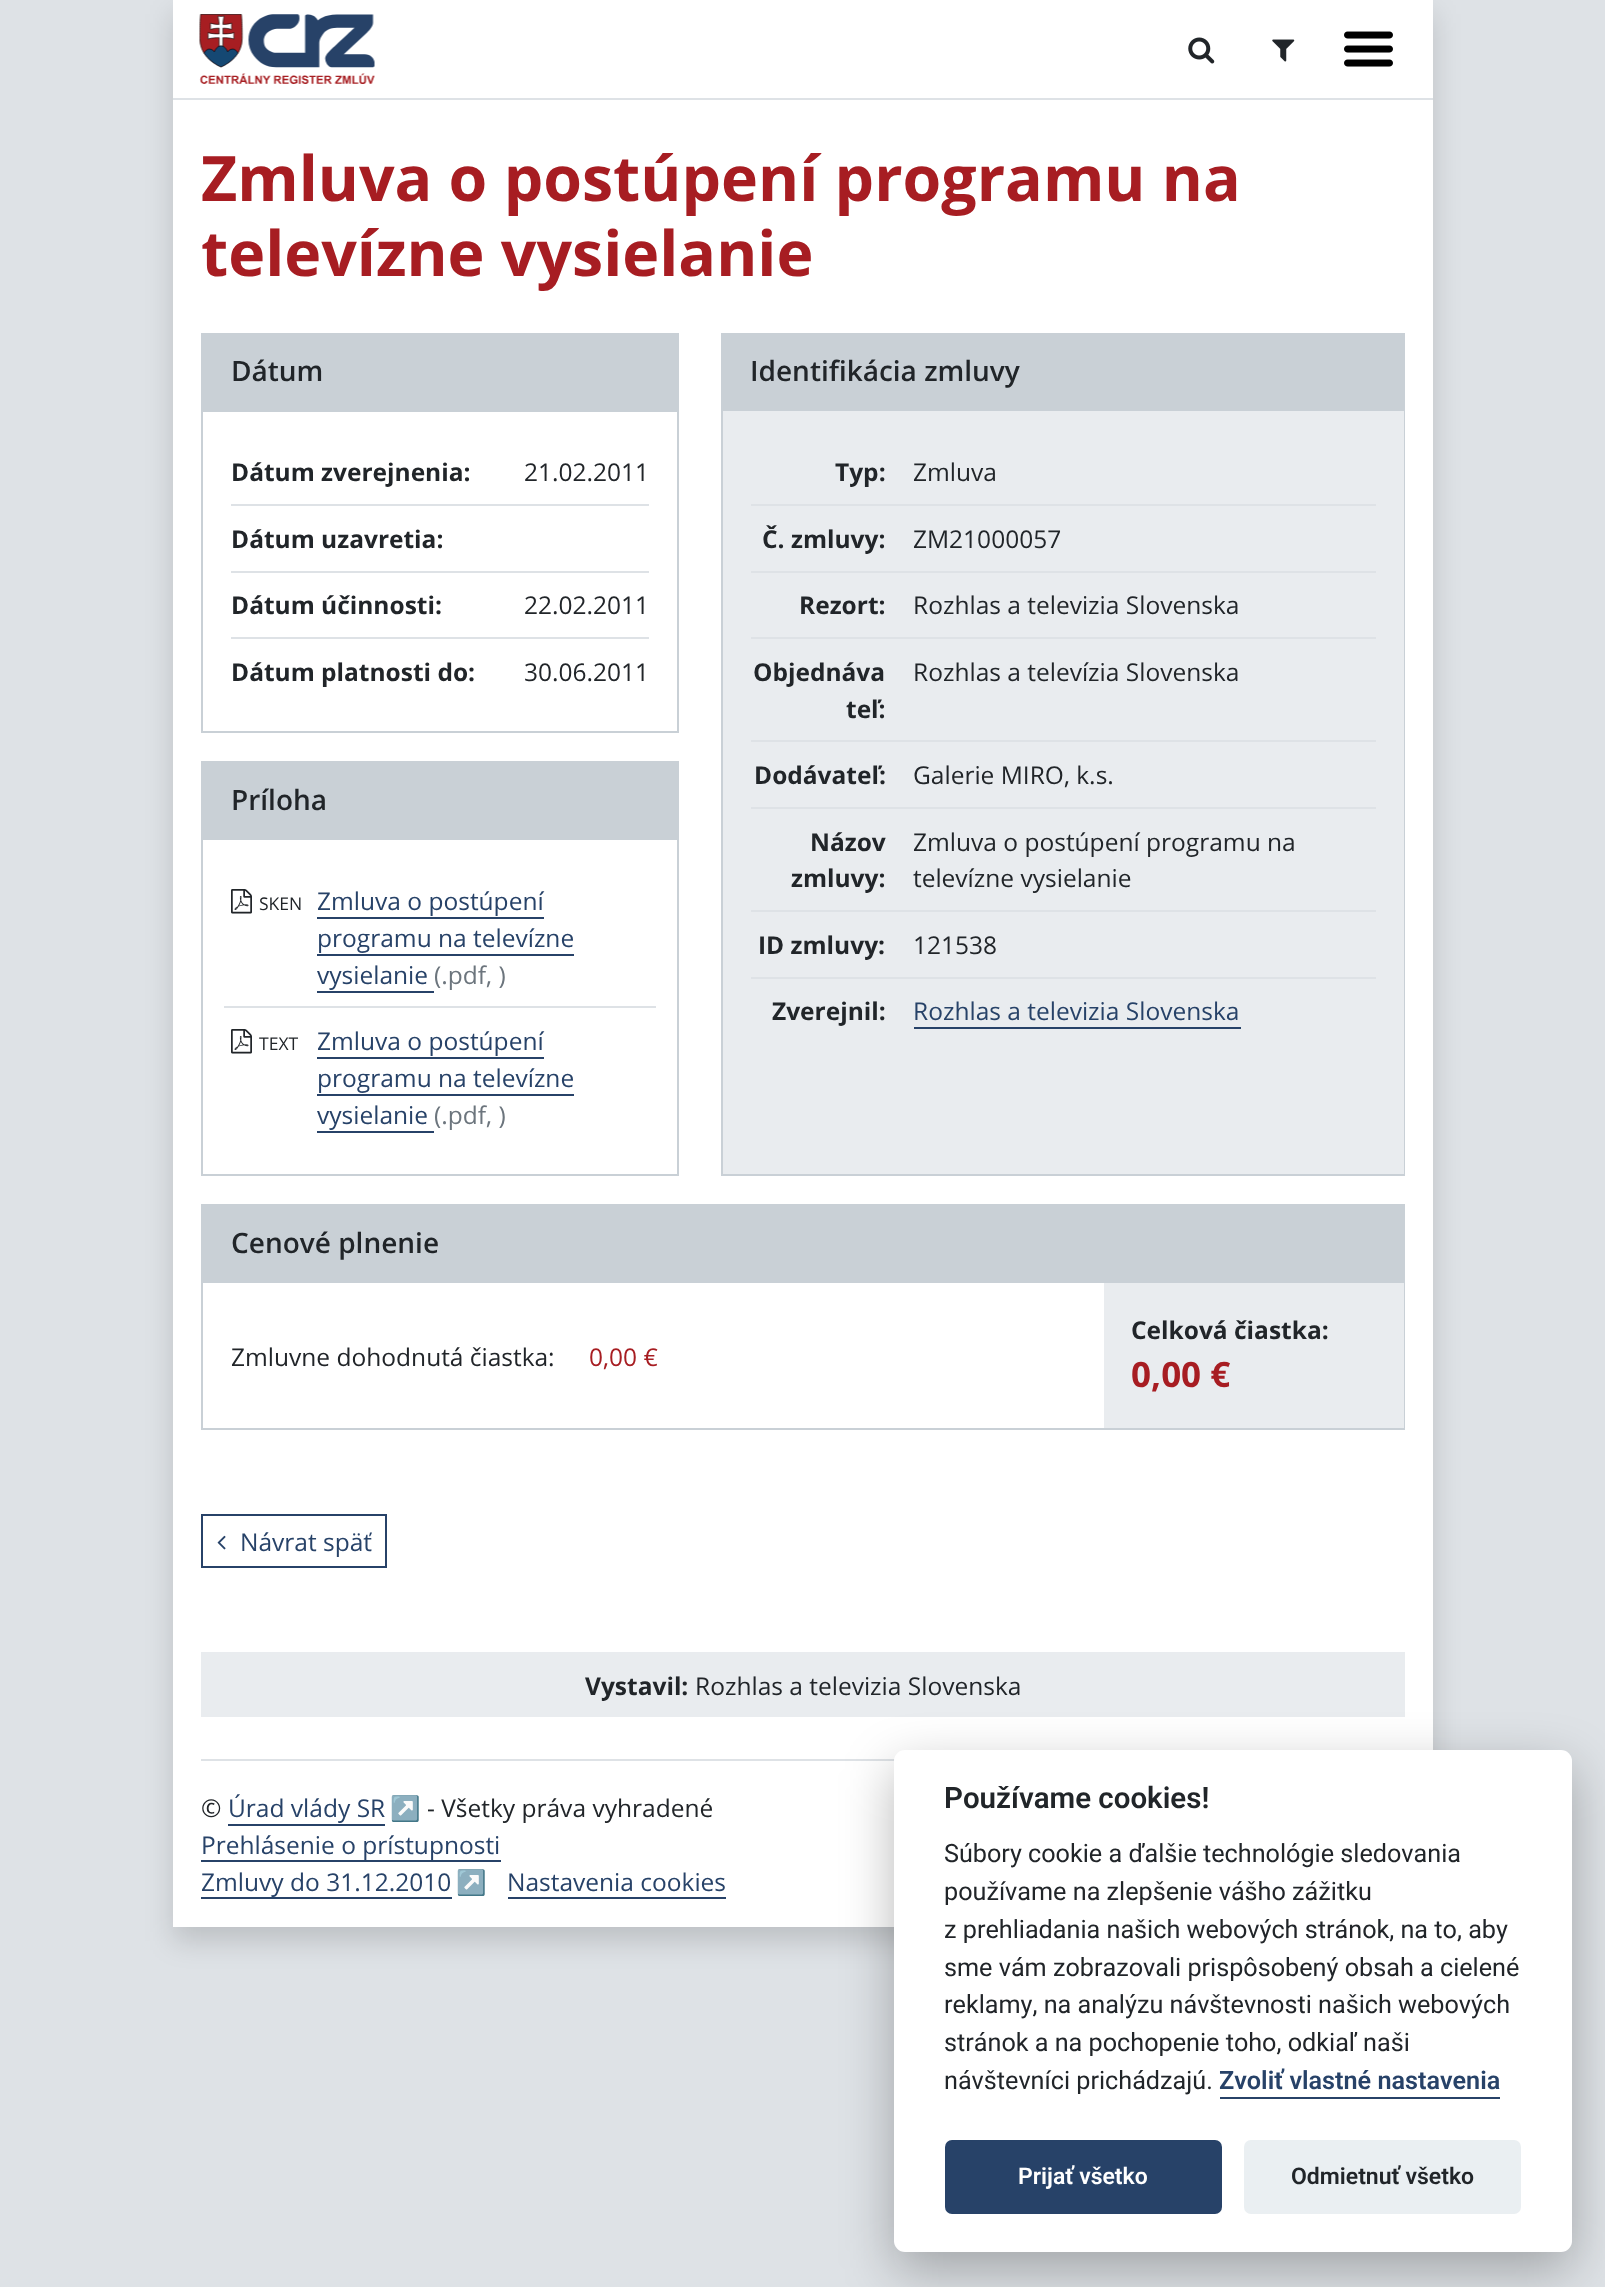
<!DOCTYPE html>
<meta charset="utf-8">
<style>body { margin: 0 } canvas { display: block }</style>
<canvas id="canvas" width="1605" height="2287"></canvas>
<img id="img1" src="images/1.png" hidden>
<img id="img2" src="images/2.png" hidden>
<img id="img3" src="images/3.png" hidden>
<img id="img4" src="images/4.png" hidden>
<img id="img5" src="images/5.png" hidden>
<img id="img6" src="images/6.png" hidden>
<script>
window.onload = function () {
    const canvas = document.getElementById('canvas');
    const context = canvas.getContext('2d');
    context.miterLimit = 4;
    context.fontKerning = 'none';

    context.fillStyle = 'rgb(222, 226, 230)';
    context.fillRect(0, 0, 1605, 2287);
    context.fillStyle = 'rgba(0, 0, 0, 0.15)';
    context.filter = 'blur(14px)';
    context.beginPath();
    context.rect(173, 14, 1260, 1927);
    context.fill();
    context.filter = 'none';
    context.fillStyle = 'rgb(255, 255, 255)';
    context.fillRect(173, 0, 1260, 1927);
    context.fillStyle = 'rgb(222, 226, 230)';
    context.fillRect(173, 98, 1260, 2);
    context.drawImage(document.getElementById('img1'), 199, 14, 176, 70);
    context.drawImage(document.getElementById('img2'), 1188, 37, 27, 27);
    context.drawImage(document.getElementById('img3'), 1272, 39, 23, 23);
    context.drawImage(document.getElementById('img4'), 1344, 31, 49, 36);
    context.strokeStyle = 'rgb(201, 208, 214)';
    context.lineWidth = 2;
    context.strokeRect(202, 334, 476, 398);
    context.fillStyle = 'rgb(201, 208, 214)';
    context.fillRect(203, 335, 474, 77);
    context.fillStyle = 'rgb(222, 226, 230)';
    context.fillRect(231, 504, 418, 2);
    context.fillRect(231, 571, 418, 2);
    context.fillRect(231, 637, 418, 2);
    context.strokeRect(202, 762, 476, 413);
    context.fillStyle = 'rgb(201, 208, 214)';
    context.fillRect(203, 763, 474, 77);
    context.drawImage(document.getElementById('img5'), 231, 889, 21, 25);
    context.fillStyle = 'rgb(39, 66, 104)';
    context.fillRect(317, 917, 227, 2);
    context.fillRect(317, 954, 257, 2);
    context.fillRect(317, 991, 117, 2);
    context.fillStyle = 'rgb(222, 226, 230)';
    context.fillRect(224, 1006, 432, 2);
    context.drawImage(document.getElementById('img5'), 231, 1029, 21, 25);
    context.fillStyle = 'rgb(39, 66, 104)';
    context.fillRect(317, 1057, 227, 2);
    context.fillRect(317, 1094, 257, 2);
    context.fillRect(317, 1131, 117, 2);
    context.strokeRect(722, 334, 682, 841);
    context.fillStyle = 'rgb(201, 208, 214)';
    context.fillRect(723, 335, 680, 75);
    context.fillRect(723, 410, 681, 1);
    context.fillStyle = 'rgb(233, 236, 239)';
    context.fillRect(723, 411, 681, 763);
    context.fillStyle = 'rgb(222, 226, 230)';
    context.fillRect(751, 504, 625, 2);
    context.fillRect(751, 571, 625, 2);
    context.fillRect(751, 637, 625, 2);
    context.fillRect(751, 740, 625, 2);
    context.fillRect(751, 807, 625, 2);
    context.fillRect(751, 910, 625, 2);
    context.fillRect(751, 977, 625, 2);
    context.fillStyle = 'rgb(39, 66, 104)';
    context.fillRect(914, 1027, 327, 2);
    context.strokeRect(202, 1205, 1202, 224);
    context.fillStyle = 'rgb(201, 208, 214)';
    context.fillRect(203, 1206, 1200, 77);
    context.fillStyle = 'rgb(233, 236, 239)';
    context.fillRect(1104, 1283, 300, 145);
    context.strokeStyle = 'rgb(39, 66, 104)';
    context.strokeRect(202, 1515, 184, 52);
    context.drawImage(document.getElementById('img6'), 217, 1535, 9, 15);
    context.fillRect(201, 1652, 1204, 65);
    context.fillStyle = 'rgb(222, 226, 230)';
    context.fillRect(201, 1759, 694, 2);
    context.fillStyle = 'rgb(39, 66, 104)';
    context.fillRect(228, 1824, 157, 2);
    context.fillRect(201, 1860, 300, 2);
    context.fillRect(201, 1897, 251, 2);
    context.fillRect(508, 1897, 218, 2);
    context.fillStyle = 'rgba(2, 2, 3, 0.28)';
    context.filter = 'blur(26px)';
    context.beginPath();
    context.roundRect(894, 1768, 678, 502, 11);
    context.fill();
    context.filter = 'none';
    context.fillStyle = 'rgb(255, 255, 255)';
    context.beginPath();
    context.roundRect(894, 1750, 678, 502, 11);
    context.fill();
    context.fillStyle = 'rgb(39, 66, 104)';
    context.fillRect(1220, 2097, 280, 2);
    context.beginPath();
    context.roundRect(945, 2140, 277, 74, 7);
    context.fill();
    context.fillStyle = 'rgb(234, 239, 242)';
    context.beginPath();
    context.roundRect(1244, 2140, 277, 74, 7);
    context.fill();
    context.font = 'bold 62.6px Open Sans';
    context.fillStyle = 'rgb(167, 29, 34)';
    context.fillText('Zmluva o postúpení programu na', 201, 201);
    context.fillText('televízne vysielanie', 201, 276);
    context.font = '600 28px Open Sans';
    context.fillStyle = 'rgb(33, 37, 41)';
    context.fillText('Dátum', 231, 381);
    context.font = 'bold 24.5px Open Sans';
    context.fillText('Dátum zverejnenia:', 231, 481);
    context.font = '24.5px Open Sans';
    context.fillText('21.02.2011', 524, 481);
    context.font = 'bold 24.5px Open Sans';
    context.fillText('Dátum uzavretia:', 231, 548);
    context.fillText('Dátum účinnosti:', 231, 614);
    context.font = '24.5px Open Sans';
    context.fillText('22.02.2011', 524, 614);
    context.font = 'bold 24.5px Open Sans';
    context.fillText('Dátum platnosti do:', 231, 681);
    context.font = '24.5px Open Sans';
    context.fillText('30.06.2011', 524, 681);
    context.font = '600 28px Open Sans';
    context.fillText('Príloha', 231, 810);
    context.font = '17.5px Open Sans';
    context.fillText('SKEN', 259, 910);
    context.font = '24.5px Open Sans';
    context.fillStyle = 'rgb(39, 66, 104)';
    context.fillText('Zmluva o postúpení', 317, 910);
    context.fillText('programu na televízne', 317, 947);
    context.fillText('vysielanie', 317, 984);
    context.fillStyle = 'rgb(108, 117, 125)';
    context.fillText('(.pdf, )', 434, 984);
    context.font = '17.5px Open Sans';
    context.fillStyle = 'rgb(33, 37, 41)';
    context.fillText('TEXT', 259, 1050);
    context.font = '24.5px Open Sans';
    context.fillStyle = 'rgb(39, 66, 104)';
    context.fillText('Zmluva o postúpení', 317, 1050);
    context.fillText('programu na televízne', 317, 1087);
    context.fillText('vysielanie', 317, 1124);
    context.fillStyle = 'rgb(108, 117, 125)';
    context.fillText('(.pdf, )', 434, 1124);
    context.font = '600 28px Open Sans';
    context.fillStyle = 'rgb(33, 37, 41)';
    context.fillText('Identifikácia zmluvy', 750, 381);
    context.font = 'bold 24.5px Open Sans';
    context.fillText('Typ:', 835, 481);
    context.font = '24.5px Open Sans';
    context.fillText('Zmluva', 913, 481);
    context.font = 'bold 24.5px Open Sans';
    context.fillText('Č. zmluvy:', 762, 548);
    context.font = '24.5px Open Sans';
    context.fillText('ZM21000057', 913, 548);
    context.font = 'bold 24.5px Open Sans';
    context.fillText('Rezort:', 799, 614);
    context.font = '24.5px Open Sans';
    context.fillText('Rozhlas a televizia Slovenska', 913, 614);
    context.font = 'bold 24.5px Open Sans';
    context.fillText('Objednáva', 753, 681);
    context.fillText('teľ:', 846, 718);
    context.font = '24.5px Open Sans';
    context.fillText('Rozhlas a televízia Slovenska', 913, 681);
    context.font = 'bold 24.5px Open Sans';
    context.fillText('Dodávateľ:', 754, 784);
    context.font = '24.5px Open Sans';
    context.fillText('Galerie MIRO, k.s.', 913, 784);
    context.font = 'bold 24.5px Open Sans';
    context.fillText('Názov', 810, 851);
    context.fillText('zmluvy:', 791, 887);
    context.font = '24.5px Open Sans';
    context.fillText('Zmluva o postúpení programu na', 913, 851);
    context.fillText('televízne vysielanie', 913, 887);
    context.font = 'bold 24.5px Open Sans';
    context.fillText('ID zmluvy:', 758, 954);
    context.font = '24.5px Open Sans';
    context.fillText('121538', 913, 954);
    context.font = 'bold 24.5px Open Sans';
    context.fillText('Zverejnil:', 772, 1020);
    context.font = '24.5px Open Sans';
    context.fillStyle = 'rgb(39, 66, 104)';
    context.fillText('Rozhlas a televizia Slovenska', 913, 1020);
    context.font = '600 28px Open Sans';
    context.fillStyle = 'rgb(33, 37, 41)';
    context.fillText('Cenové plnenie', 231, 1253);
    context.font = '24.5px Open Sans';
    context.fillText('Zmluvne dohodnutá čiastka:', 231, 1366);
    context.fillStyle = 'rgb(167, 29, 34)';
    context.fillText('0,00 €', 589, 1366);
    context.font = 'bold 24.5px Open Sans';
    context.fillStyle = 'rgb(33, 37, 41)';
    context.fillText('Celková čiastka:', 1131, 1339);
    context.font = 'bold 35px Open Sans';
    context.fillStyle = 'rgb(167, 29, 34)';
    context.fillText('0,00 €', 1131, 1387);
    context.font = '24.5px Open Sans';
    context.fillStyle = 'rgb(39, 66, 104)';
    context.fillText('Návrat späť', 240, 1551);
    context.font = 'bold 24.5px Open Sans';
    context.fillStyle = 'rgb(33, 37, 41)';
    context.fillText('Vystavil:', 585, 1695);
    context.font = '24.5px Open Sans';
    context.fillText('Rozhlas a televizia Slovenska', 695, 1695);
    context.fillText('©', 201, 1817);
    context.fillStyle = 'rgb(39, 66, 104)';
    context.fillText('Úrad vlády SR', 228, 1817);
    context.font = '24.5px Noto Color Emoji';
    context.fillText('↗️', 390, 1817);
    context.font = '24.5px Open Sans';
    context.fillStyle = 'rgb(33, 37, 41)';
    context.fillText('- Všetky práva vyhradené', 427, 1817);
    context.fillStyle = 'rgb(39, 66, 104)';
    context.fillText('Prehlásenie o prístupnosti', 201, 1854);
    context.fillText('Zmluvy do 31.12.2010', 201, 1891);
    context.font = '24.5px Noto Color Emoji';
    context.fillText('↗️', 456, 1891);
    context.font = '24.5px Open Sans';
    context.fillText('Nastavenia cookies', 507, 1891);
    context.font = '600 29.5px Roboto';
    context.fillStyle = 'rgb(33, 37, 41)';
    context.fillText('Používame cookies!', 944, 1808);
    context.font = '25.2px Roboto';
    context.fillText('Súbory cookie a ďalšie technológie sledovania', 944, 1862);
    context.fillText('používame na zlepšenie vášho zážitku', 944, 1900);
    context.fillText('z prehliadania našich webových stránok, na to, aby', 944, 1938);
    context.fillText('sme vám zobrazovali prispôsobený obsah a cielené', 944, 1976);
    context.fillText('reklamy, na analýzu návštevnosti našich webových', 944, 2013);
    context.fillText('stránok a na pochopenie toho, odkiaľ naši', 944, 2051);
    context.fillText('návštevníci prichádzajú.', 944, 2089);
    context.font = '600 25.2px Roboto';
    context.fillStyle = 'rgb(39, 66, 104)';
    context.fillText('Zvoliť vlastné nastavenia', 1219, 2089);
    context.font = '600 23px Roboto';
    context.fillStyle = 'rgb(255, 255, 255)';
    context.fillText('Prijať všetko', 1018, 2184);
    context.fillStyle = 'rgb(33, 37, 41)';
    context.fillText('Odmietnuť všetko', 1291, 2184);
};
</script>
